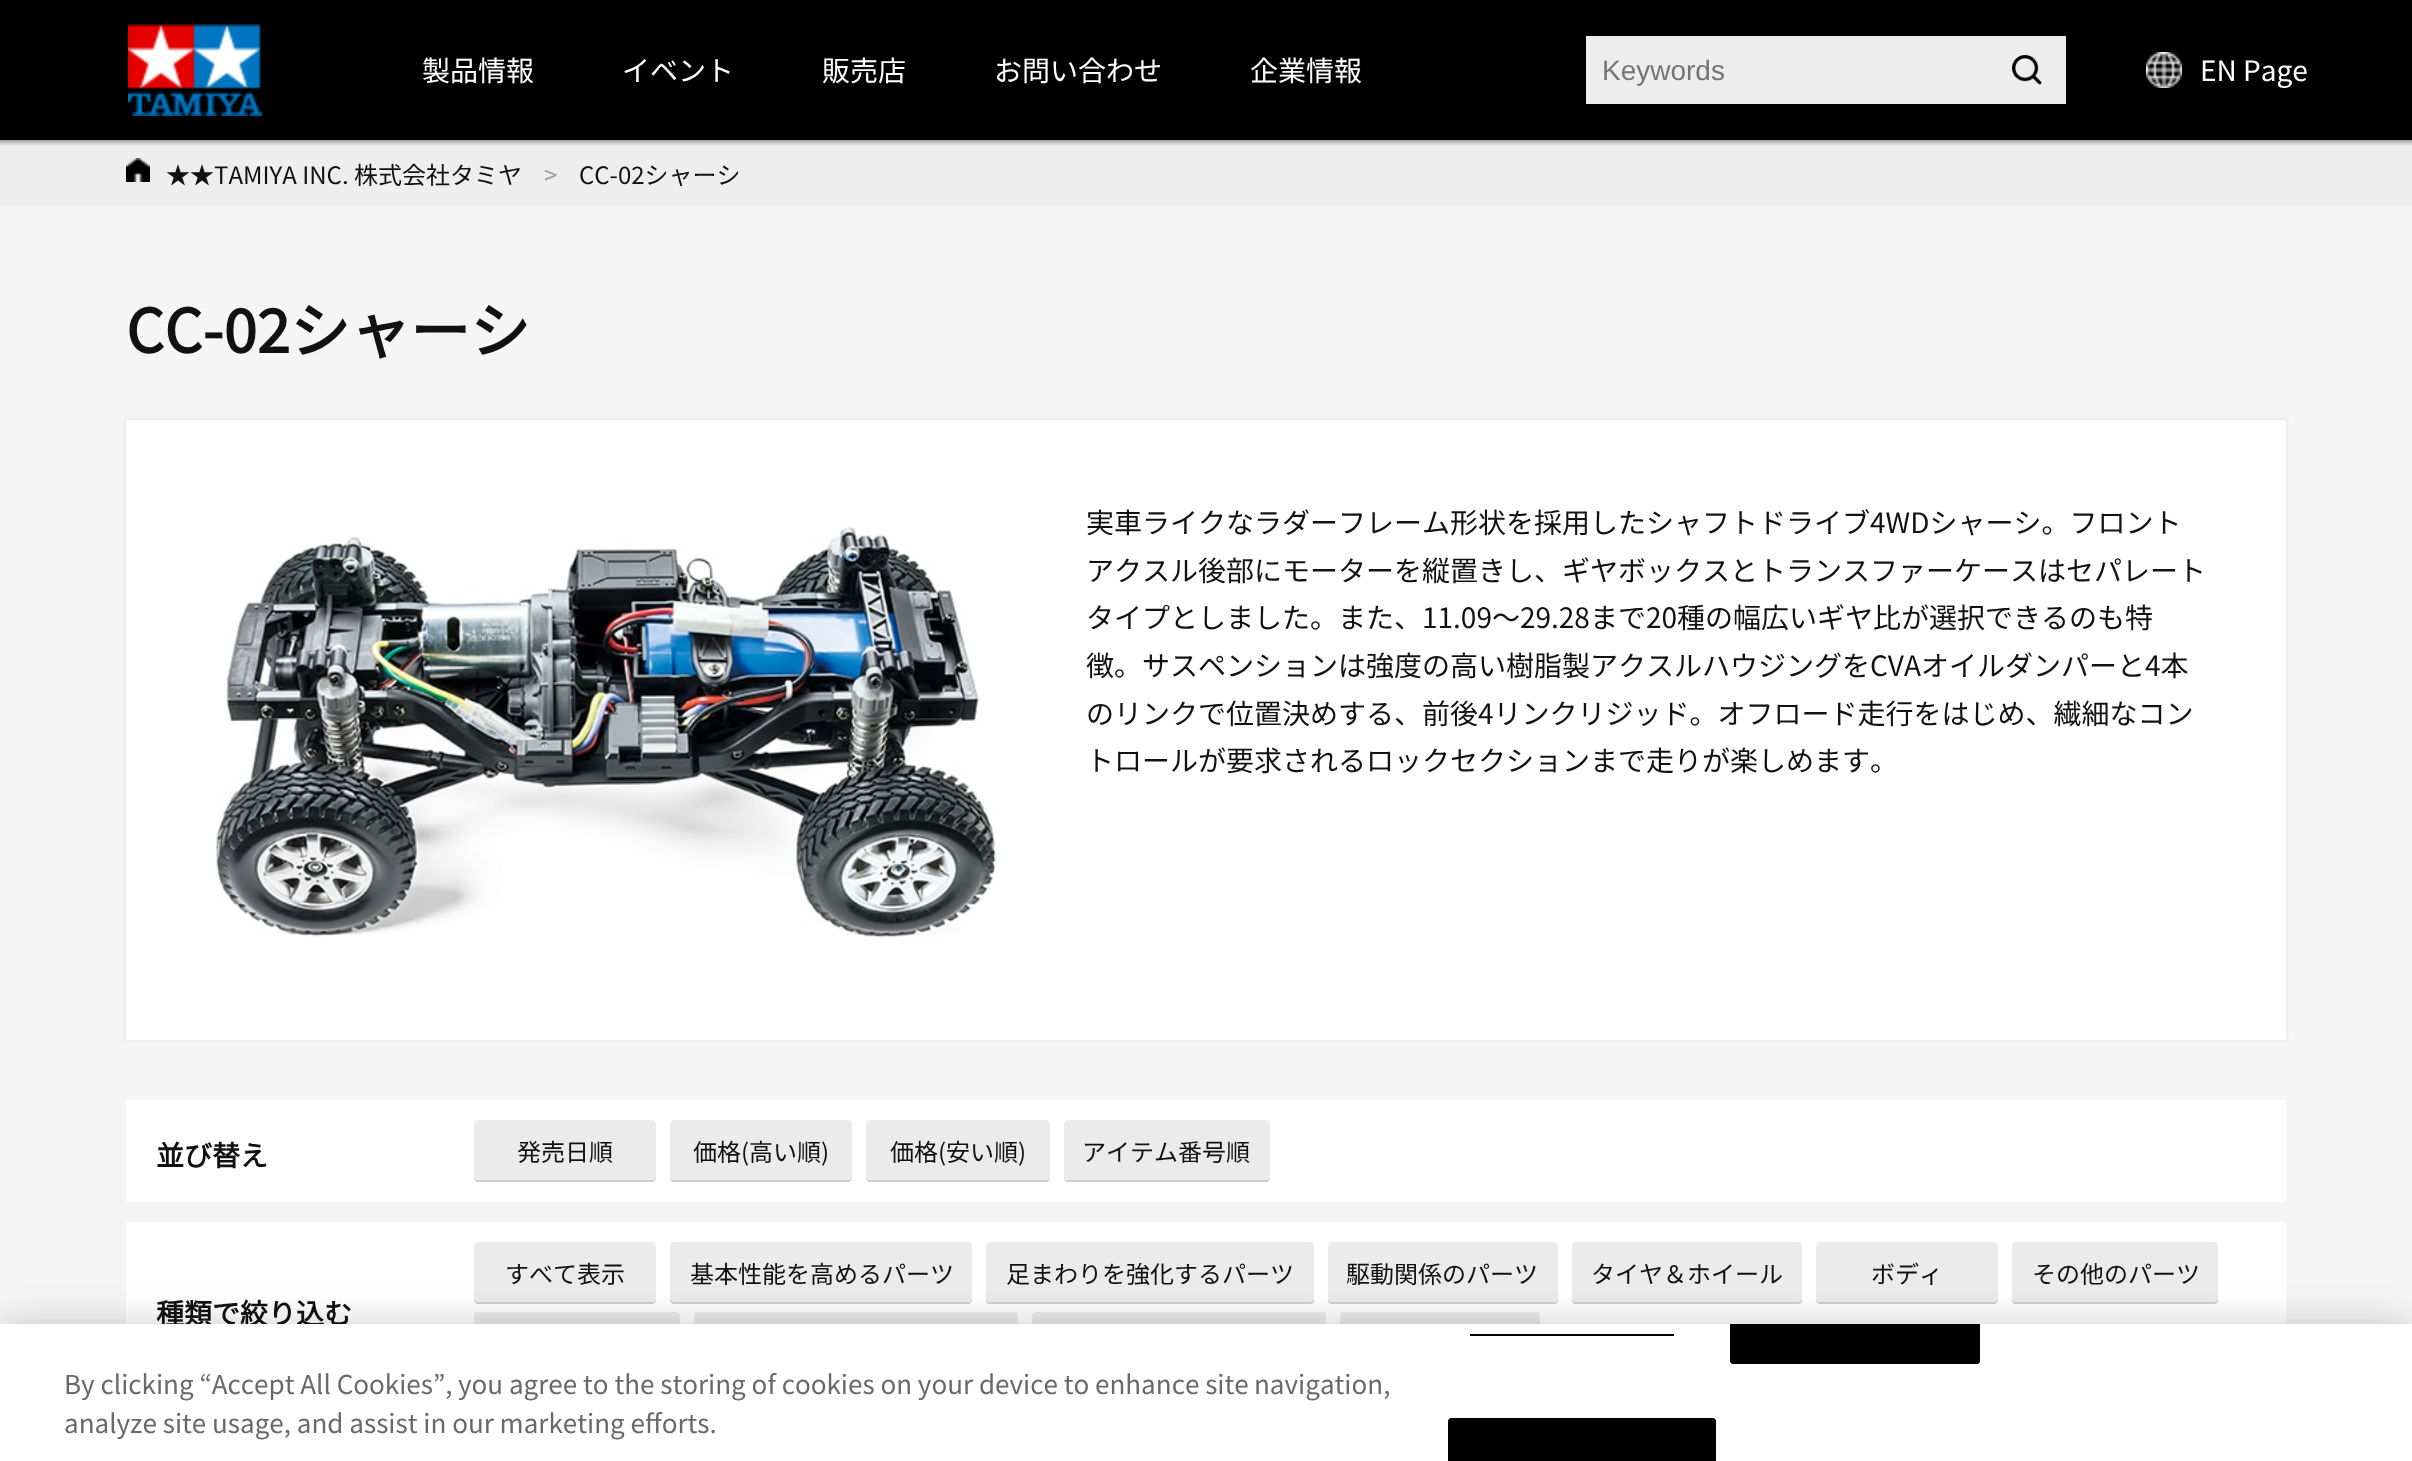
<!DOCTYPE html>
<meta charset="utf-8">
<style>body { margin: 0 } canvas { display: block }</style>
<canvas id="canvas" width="2412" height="1461"></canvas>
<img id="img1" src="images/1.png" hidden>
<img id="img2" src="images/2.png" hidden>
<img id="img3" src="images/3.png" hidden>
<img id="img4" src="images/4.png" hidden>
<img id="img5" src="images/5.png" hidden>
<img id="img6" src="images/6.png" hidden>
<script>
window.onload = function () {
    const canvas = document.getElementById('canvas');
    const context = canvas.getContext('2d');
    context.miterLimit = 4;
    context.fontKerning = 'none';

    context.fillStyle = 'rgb(245, 245, 245)';
    context.fillRect(0, 0, 2412, 1461);
    context.fillStyle = 'rgb(0, 0, 0)';
    context.fillRect(0, 0, 2412, 140);
    context.drawImage(document.getElementById('img1'), 128, 24, 134, 92);
    context.fillStyle = 'rgb(237, 237, 237)';
    context.fillRect(1586, 36, 480, 68);
    context.drawImage(document.getElementById('img2'), 2012, 55, 30, 30);
    context.drawImage(document.getElementById('img3'), 2146, 52, 36, 36);
    context.fillStyle = 'rgb(238, 238, 238)';
    context.fillRect(0, 140, 2412, 66);
    context.drawImage(document.getElementById('img4'), 0, 140, 2412, 6);
    context.drawImage(document.getElementById('img5'), 126, 158, 24, 24);
    context.fillStyle = 'rgba(0, 0, 0, 0.1)';
    context.filter = 'blur(2px)';
    context.beginPath();
    context.rect(126, 420, 2160, 620);
    context.fill();
    context.filter = 'none';
    context.fillStyle = 'rgb(255, 255, 255)';
    context.fillRect(126, 420, 2160, 620);
    context.drawImage(document.getElementById('img6'), 214, 526, 782, 412);
    context.fillRect(126, 1100, 2160, 102);
    context.fillStyle = 'rgb(206, 206, 206)';
    context.beginPath();
    context.moveTo(474, 1176);
    context.lineTo(474, 1178);
    context.bezierCurveTo(474, 1180, 476, 1182, 478, 1182);
    context.lineTo(652, 1182);
    context.bezierCurveTo(654, 1182, 656, 1180, 656, 1178);
    context.lineTo(656, 1176);
    context.bezierCurveTo(656, 1178, 654, 1180, 652, 1180);
    context.lineTo(478, 1180);
    context.bezierCurveTo(476, 1180, 474, 1178, 474, 1176);
    context.closePath();
    context.fill();
    context.fillStyle = 'rgb(235, 235, 235)';
    context.beginPath();
    context.roundRect(474, 1120, 182, 60, 4);
    context.fill();
    context.fillStyle = 'rgb(206, 206, 206)';
    context.beginPath();
    context.moveTo(670, 1176);
    context.lineTo(670, 1178);
    context.bezierCurveTo(670, 1180, 672, 1182, 674, 1182);
    context.lineTo(848, 1182);
    context.bezierCurveTo(850, 1182, 852, 1180, 852, 1178);
    context.lineTo(852, 1176);
    context.bezierCurveTo(852, 1178, 850, 1180, 848, 1180);
    context.lineTo(674, 1180);
    context.bezierCurveTo(672, 1180, 670, 1178, 670, 1176);
    context.closePath();
    context.fill();
    context.fillStyle = 'rgb(235, 235, 235)';
    context.beginPath();
    context.roundRect(670, 1120, 182, 60, 4);
    context.fill();
    context.fillStyle = 'rgb(206, 206, 206)';
    context.beginPath();
    context.moveTo(866, 1176);
    context.lineTo(866, 1178);
    context.bezierCurveTo(866, 1180, 868, 1182, 870, 1182);
    context.lineTo(1046, 1182);
    context.bezierCurveTo(1048, 1182, 1050, 1180, 1050, 1178);
    context.lineTo(1050, 1176);
    context.bezierCurveTo(1050, 1178, 1048, 1180, 1046, 1180);
    context.lineTo(870, 1180);
    context.bezierCurveTo(868, 1180, 866, 1178, 866, 1176);
    context.closePath();
    context.fill();
    context.fillStyle = 'rgb(235, 235, 235)';
    context.beginPath();
    context.roundRect(866, 1120, 184, 60, 4);
    context.fill();
    context.fillStyle = 'rgb(206, 206, 206)';
    context.beginPath();
    context.moveTo(1064, 1176);
    context.bezierCurveTo(1064, 1179, 1064, 1181, 1067, 1182);
    context.lineTo(1266, 1182);
    context.bezierCurveTo(1270, 1182, 1270, 1179, 1270, 1176);
    context.bezierCurveTo(1270, 1178, 1268, 1180, 1266, 1180);
    context.lineTo(1068, 1180);
    context.bezierCurveTo(1066, 1180, 1064, 1178, 1064, 1176);
    context.closePath();
    context.fill();
    context.fillStyle = 'rgb(235, 235, 235)';
    context.beginPath();
    context.roundRect(1064, 1120, 206, 60, 4);
    context.fill();
    context.fillStyle = 'rgb(255, 255, 255)';
    context.fillRect(126, 1222, 2160, 102);
    context.fillStyle = 'rgb(206, 206, 206)';
    context.beginPath();
    context.moveTo(474, 1298);
    context.lineTo(474, 1300);
    context.bezierCurveTo(474, 1302, 476, 1304, 478, 1304);
    context.lineTo(652, 1304);
    context.bezierCurveTo(654, 1304, 656, 1302, 656, 1300);
    context.lineTo(656, 1298);
    context.bezierCurveTo(656, 1300, 654, 1302, 652, 1302);
    context.lineTo(478, 1302);
    context.bezierCurveTo(476, 1302, 474, 1300, 474, 1298);
    context.closePath();
    context.fill();
    context.fillStyle = 'rgb(235, 235, 235)';
    context.beginPath();
    context.roundRect(474, 1242, 182, 60, 4);
    context.fill();
    context.fillStyle = 'rgb(206, 206, 206)';
    context.beginPath();
    context.moveTo(670, 1298);
    context.lineTo(670, 1300);
    context.bezierCurveTo(670, 1302, 672, 1304, 674, 1304);
    context.lineTo(968, 1304);
    context.bezierCurveTo(970, 1304, 972, 1302, 972, 1300);
    context.lineTo(972, 1298);
    context.bezierCurveTo(972, 1300, 970, 1302, 968, 1302);
    context.lineTo(674, 1302);
    context.bezierCurveTo(672, 1302, 670, 1300, 670, 1298);
    context.closePath();
    context.fill();
    context.fillStyle = 'rgb(235, 235, 235)';
    context.beginPath();
    context.roundRect(670, 1242, 302, 60, 4);
    context.fill();
    context.fillStyle = 'rgb(206, 206, 206)';
    context.beginPath();
    context.moveTo(986, 1298);
    context.bezierCurveTo(986, 1301, 986, 1304, 990, 1304);
    context.lineTo(1310, 1304);
    context.bezierCurveTo(1314, 1304, 1314, 1301, 1314, 1298);
    context.bezierCurveTo(1314, 1300, 1312, 1302, 1310, 1302);
    context.lineTo(990, 1302);
    context.bezierCurveTo(988, 1302, 986, 1300, 986, 1298);
    context.closePath();
    context.fill();
    context.fillStyle = 'rgb(235, 235, 235)';
    context.beginPath();
    context.roundRect(986, 1242, 328, 60, 4);
    context.fill();
    context.fillStyle = 'rgb(206, 206, 206)';
    context.beginPath();
    context.moveTo(1328, 1298);
    context.bezierCurveTo(1328, 1301, 1328, 1304, 1332, 1304);
    context.lineTo(1554, 1304);
    context.bezierCurveTo(1558, 1304, 1558, 1301, 1558, 1298);
    context.bezierCurveTo(1558, 1300, 1556, 1302, 1554, 1302);
    context.lineTo(1332, 1302);
    context.bezierCurveTo(1330, 1302, 1328, 1300, 1328, 1298);
    context.closePath();
    context.fill();
    context.fillStyle = 'rgb(235, 235, 235)';
    context.beginPath();
    context.roundRect(1328, 1242, 230, 60, 4);
    context.fill();
    context.fillStyle = 'rgb(206, 206, 206)';
    context.beginPath();
    context.moveTo(1572, 1298);
    context.bezierCurveTo(1572, 1301, 1572, 1304, 1576, 1304);
    context.lineTo(1798, 1304);
    context.bezierCurveTo(1802, 1304, 1802, 1301, 1802, 1298);
    context.bezierCurveTo(1802, 1300, 1800, 1302, 1798, 1302);
    context.lineTo(1576, 1302);
    context.bezierCurveTo(1574, 1302, 1572, 1300, 1572, 1298);
    context.closePath();
    context.fill();
    context.fillStyle = 'rgb(235, 235, 235)';
    context.beginPath();
    context.roundRect(1572, 1242, 230, 60, 4);
    context.fill();
    context.fillStyle = 'rgb(206, 206, 206)';
    context.beginPath();
    context.moveTo(1816, 1298);
    context.lineTo(1816, 1300);
    context.bezierCurveTo(1816, 1302, 1818, 1304, 1820, 1304);
    context.lineTo(1994, 1304);
    context.bezierCurveTo(1996, 1304, 1998, 1302, 1998, 1300);
    context.lineTo(1998, 1298);
    context.bezierCurveTo(1998, 1300, 1996, 1302, 1994, 1302);
    context.lineTo(1820, 1302);
    context.bezierCurveTo(1818, 1302, 1816, 1300, 1816, 1298);
    context.closePath();
    context.fill();
    context.fillStyle = 'rgb(235, 235, 235)';
    context.beginPath();
    context.roundRect(1816, 1242, 182, 60, 4);
    context.fill();
    context.fillStyle = 'rgb(206, 206, 206)';
    context.beginPath();
    context.moveTo(2012, 1298);
    context.bezierCurveTo(2012, 1301, 2012, 1304, 2016, 1304);
    context.lineTo(2215, 1304);
    context.bezierCurveTo(2218, 1303, 2218, 1301, 2218, 1298);
    context.bezierCurveTo(2218, 1300, 2216, 1302, 2214, 1302);
    context.lineTo(2016, 1302);
    context.bezierCurveTo(2014, 1302, 2012, 1300, 2012, 1298);
    context.closePath();
    context.fill();
    context.fillStyle = 'rgb(235, 235, 235)';
    context.beginPath();
    context.roundRect(2012, 1242, 206, 60, 4);
    context.fill();
    context.beginPath();
    context.roundRect(474, 1312, 206, 60, 4);
    context.fill();
    context.beginPath();
    context.roundRect(694, 1312, 324, 60, 4);
    context.fill();
    context.beginPath();
    context.roundRect(1032, 1312, 294, 60, 4);
    context.fill();
    context.beginPath();
    context.roundRect(1340, 1312, 200, 60, 4);
    context.fill();
    context.fillStyle = 'rgba(0, 0, 0, 0.2)';
    context.filter = 'blur(18px)';
    context.beginPath();
    context.rect(0, 1324, 2412, 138);
    context.fill();
    context.filter = 'none';
    context.font = '100 28px Noto Sans JP';
    context.fillStyle = 'rgb(255, 255, 255)';
    context.fillText('製品情報', 422, 81);
    context.fillText('イベント', 622, 81);
    context.fillText('販売店', 822, 81);
    context.fillText('お問い合わせ', 994, 81);
    context.fillText('企業情報', 1250, 81);
    context.font = '28px Liberation Sans';
    context.fillStyle = 'rgb(117, 117, 117)';
    context.fillText('Keywords', 1602, 80);
    context.font = '100 28px Noto Sans JP';
    context.fillStyle = 'rgb(255, 255, 255)';
    context.fillText('EN Page', 2200, 81);
    context.font = '100 24px Noto Sans JP';
    context.fillStyle = 'rgb(17, 17, 17)';
    context.fillText('★★TAMIYA INC. 株式会社タミヤ', 166, 184);
    context.fillStyle = 'rgb(153, 153, 153)';
    context.fillText('>', 544, 184);
    context.fillStyle = 'rgb(17, 17, 17)';
    context.fillText('CC-02シャーシ', 579, 184);
    context.font = 'bold 60px Noto Sans JP';
    context.fillText('CC-02シャーシ', 126, 353);
    context.font = '100 28px Noto Sans JP';
    context.fillText('実車ライクなラダーフレーム形状を採用したシャフトドライブ4WDシャーシ。フロント', 1086, 533);
    context.fillText('アクスル後部にモーターを縦置きし、ギヤボックスとトランスファーケー', 1086, 581);
    context.fillText('スはセパレート', 2010, 581);
    context.fillText('タイプとしました。また、11.09～29.28まで20種の幅広いギヤ比が選択できるのも特', 1086, 628);
    context.fillText('徴。サスペンションは強度の高い樹脂製アクスルハウジングをCVA', 1086, 676);
    context.fillText('オイルダンパーと4本', 1921, 676);
    context.fillText('のリンクで位置決めする、前後4リンクリジッド。オフロード走行をはじめ、繊細なコン', 1086, 724);
    context.fillText('トロールが要求されるロックセクションまで走りが楽しめます。', 1086, 771);
    context.font = 'bold 28px Noto Sans JP';
    context.fillText('並び替え', 156, 1166);
    context.font = '100 24px Noto Sans JP';
    context.fillText('発売日順', 517, 1161);
    context.fillText('価格(高い順)', 693, 1161);
    context.fillText('価格(安い順)', 890, 1161);
    context.fillText('アイテム番号順', 1082, 1161);
    context.fillText('すべて表示', 505, 1283);
    context.fillText('基本性能を高めるパーツ', 690, 1283);
    context.fillText('足まわりを強化するパーツ', 1006, 1283);
    context.fillText('駆動関係のパーツ', 1346, 1283);
    context.fillText('タイヤ＆ホイール', 1591, 1283);
    context.fillText('ボディ', 1871, 1283);
    context.fillText('その他のパーツ', 2032, 1283);
    context.font = 'bold 28px Noto Sans JP';
    context.fillText('種類で絞り込む', 156, 1324);
    context.fillStyle = 'rgb(255, 255, 255)';
    context.fillRect(0, 1324, 2412, 137);
    context.font = '100 26.02px Noto Sans JP';
    context.fillStyle = 'rgb(105, 105, 105)';
    context.fillText('By clicking “Accept All Cookies”,', 64, 1394);
    context.fillText('you agree to the storing of cookies on your device to enhance site', 458, 1394);
    context.fillText('navigation,', 1254, 1394);
    context.fillText('analyze site usage, and assist in our marketing efforts.', 64, 1433);
    context.fillStyle = 'rgb(0, 0, 0)';
    context.fillRect(1470, 1334, 204, 2);
    context.beginPath();
    context.roundRect(1730, 1324, 250, 40, [0, 0, 4, 4]);
    context.fill();
    context.save();
    context.beginPath();
    context.rect(0, 1324, 2412, 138);
    context.clip();
    context.beginPath();
    context.roundRect(1731, 1281, 248, 82, 3);
    context.strokeStyle = 'rgb(0, 0, 0)';
    context.lineWidth = 2;
    context.stroke();
    context.restore();
    context.beginPath();
    context.moveTo(1452, 1418);
    context.lineTo(1712, 1418);
    context.bezierCurveTo(1714, 1418, 1716, 1420, 1716, 1422);
    context.lineTo(1716, 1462);
    context.lineTo(1448, 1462);
    context.lineTo(1448, 1422);
    context.bezierCurveTo(1448, 1420, 1450, 1418, 1452, 1418);
    context.closePath();
    context.fill();
    context.beginPath();
    context.roundRect(1449, 1419, 266, 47, 3);
    context.strokeStyle = 'rgb(0, 0, 0)';
    context.lineWidth = 2;
    context.stroke();
};
</script>
